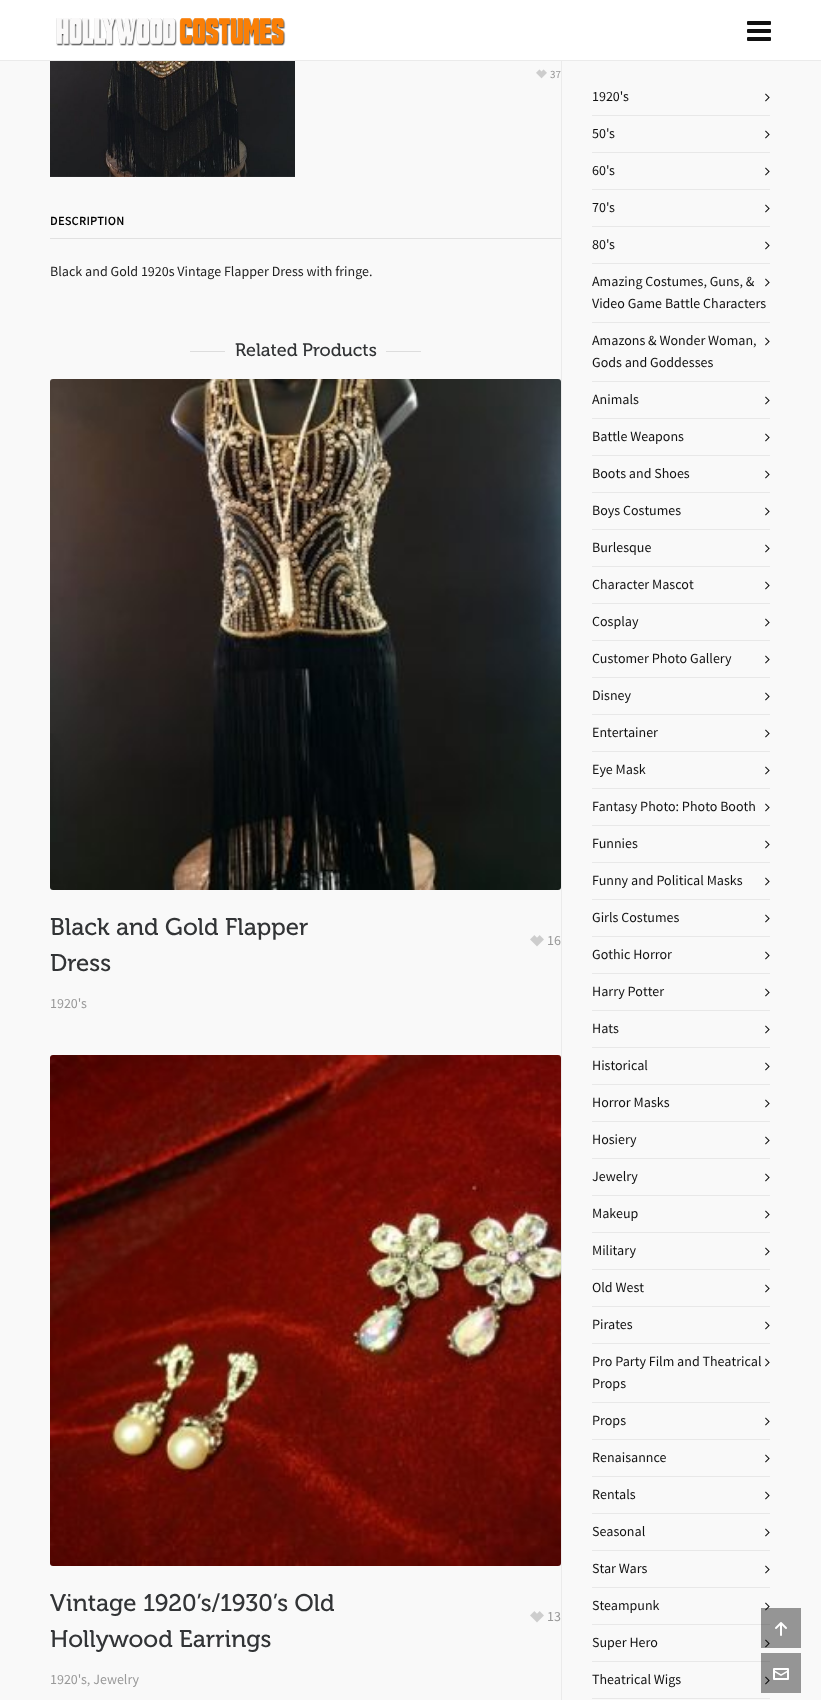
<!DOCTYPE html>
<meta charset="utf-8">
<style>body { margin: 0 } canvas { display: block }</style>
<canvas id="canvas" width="821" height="1700"></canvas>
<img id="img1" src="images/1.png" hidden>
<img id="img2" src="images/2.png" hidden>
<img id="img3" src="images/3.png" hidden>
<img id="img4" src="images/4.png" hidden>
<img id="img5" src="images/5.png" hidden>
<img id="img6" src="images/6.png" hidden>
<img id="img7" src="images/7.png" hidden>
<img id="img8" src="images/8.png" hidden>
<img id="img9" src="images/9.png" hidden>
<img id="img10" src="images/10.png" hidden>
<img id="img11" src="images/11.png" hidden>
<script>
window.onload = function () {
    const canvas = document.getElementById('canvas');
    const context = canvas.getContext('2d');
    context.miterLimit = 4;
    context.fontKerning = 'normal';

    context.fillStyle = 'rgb(249, 249, 249)';
    context.fillRect(0, 0, 821, 1700);
    context.fillStyle = 'rgb(149, 149, 149)';
    context.fillRect(761, 1653, 40, 40);
    context.fillStyle = 'rgb(255, 255, 255)';
    context.fillRect(0, 0, 821, 60);
    context.fillStyle = 'rgb(235, 235, 235)';
    context.fillRect(0, 60, 821, 1);
    context.drawImage(document.getElementById('img1'), 56, 18, 230, 28);
    context.drawImage(document.getElementById('img2'), 747, 21, 24, 20);
    context.fillRect(561, 61, 1, 1639);
    context.drawImage(document.getElementById('img3'), 50, 61, 245, 116);
    context.drawImage(document.getElementById('img4'), 536, 69, 11, 10);
    context.fillStyle = 'rgb(225, 225, 225)';
    context.fillRect(50, 238, 511, 1);
    context.fillStyle = 'rgb(221, 221, 221)';
    context.fillRect(190, 351, 35, 1);
    context.fillRect(386, 351, 35, 1);
    context.drawImage(document.getElementById('img5'), 50, 379, 511, 511);
    context.drawImage(document.getElementById('img6'), 530, 935, 14, 12);
    context.drawImage(document.getElementById('img7'), 50, 1055, 511, 511);
    context.drawImage(document.getElementById('img6'), 530, 1611, 14, 12);
    context.drawImage(document.getElementById('img8'), 765, 93, 5, 9);
    context.fillStyle = 'rgb(232, 232, 232)';
    context.fillRect(592, 115, 178, 1);
    context.drawImage(document.getElementById('img8'), 765, 130, 5, 9);
    context.fillRect(592, 152, 178, 1);
    context.drawImage(document.getElementById('img8'), 765, 167, 5, 9);
    context.fillRect(592, 189, 178, 1);
    context.drawImage(document.getElementById('img8'), 765, 204, 5, 9);
    context.fillRect(592, 226, 178, 1);
    context.drawImage(document.getElementById('img8'), 765, 241, 5, 9);
    context.fillRect(592, 263, 178, 1);
    context.drawImage(document.getElementById('img8'), 765, 278, 5, 9);
    context.fillRect(592, 322, 178, 1);
    context.drawImage(document.getElementById('img8'), 765, 337, 5, 9);
    context.fillRect(592, 381, 178, 1);
    context.drawImage(document.getElementById('img8'), 765, 396, 5, 9);
    context.fillRect(592, 418, 178, 1);
    context.drawImage(document.getElementById('img8'), 765, 433, 5, 9);
    context.fillRect(592, 455, 178, 1);
    context.drawImage(document.getElementById('img8'), 765, 470, 5, 9);
    context.fillRect(592, 492, 178, 1);
    context.drawImage(document.getElementById('img8'), 765, 507, 5, 9);
    context.fillRect(592, 529, 178, 1);
    context.drawImage(document.getElementById('img8'), 765, 544, 5, 9);
    context.fillRect(592, 566, 178, 1);
    context.drawImage(document.getElementById('img8'), 765, 581, 5, 9);
    context.fillRect(592, 603, 178, 1);
    context.drawImage(document.getElementById('img8'), 765, 618, 5, 9);
    context.fillRect(592, 640, 178, 1);
    context.drawImage(document.getElementById('img8'), 765, 655, 5, 9);
    context.fillRect(592, 677, 178, 1);
    context.drawImage(document.getElementById('img8'), 765, 692, 5, 9);
    context.fillRect(592, 714, 178, 1);
    context.drawImage(document.getElementById('img8'), 765, 729, 5, 9);
    context.fillRect(592, 751, 178, 1);
    context.drawImage(document.getElementById('img8'), 765, 766, 5, 9);
    context.fillRect(592, 788, 178, 1);
    context.drawImage(document.getElementById('img8'), 765, 803, 5, 9);
    context.fillRect(592, 825, 178, 1);
    context.drawImage(document.getElementById('img8'), 765, 840, 5, 9);
    context.fillRect(592, 862, 178, 1);
    context.drawImage(document.getElementById('img8'), 765, 877, 5, 9);
    context.fillRect(592, 899, 178, 1);
    context.drawImage(document.getElementById('img8'), 765, 914, 5, 9);
    context.fillRect(592, 936, 178, 1);
    context.drawImage(document.getElementById('img8'), 765, 951, 5, 9);
    context.fillRect(592, 973, 178, 1);
    context.drawImage(document.getElementById('img8'), 765, 988, 5, 9);
    context.fillRect(592, 1010, 178, 1);
    context.drawImage(document.getElementById('img8'), 765, 1025, 5, 9);
    context.fillRect(592, 1047, 178, 1);
    context.drawImage(document.getElementById('img8'), 765, 1062, 5, 9);
    context.fillRect(592, 1084, 178, 1);
    context.drawImage(document.getElementById('img8'), 765, 1099, 5, 9);
    context.fillRect(592, 1121, 178, 1);
    context.drawImage(document.getElementById('img8'), 765, 1136, 5, 9);
    context.fillRect(592, 1158, 178, 1);
    context.drawImage(document.getElementById('img8'), 765, 1173, 5, 9);
    context.fillRect(592, 1195, 178, 1);
    context.drawImage(document.getElementById('img8'), 765, 1210, 5, 9);
    context.fillRect(592, 1232, 178, 1);
    context.drawImage(document.getElementById('img8'), 765, 1247, 5, 9);
    context.fillRect(592, 1269, 178, 1);
    context.drawImage(document.getElementById('img8'), 765, 1284, 5, 9);
    context.fillRect(592, 1306, 178, 1);
    context.drawImage(document.getElementById('img8'), 765, 1321, 5, 9);
    context.fillRect(592, 1343, 178, 1);
    context.drawImage(document.getElementById('img8'), 765, 1358, 5, 9);
    context.fillRect(592, 1402, 178, 1);
    context.drawImage(document.getElementById('img8'), 765, 1417, 5, 9);
    context.fillRect(592, 1439, 178, 1);
    context.drawImage(document.getElementById('img8'), 765, 1454, 5, 9);
    context.fillRect(592, 1476, 178, 1);
    context.drawImage(document.getElementById('img8'), 765, 1491, 5, 9);
    context.fillRect(592, 1513, 178, 1);
    context.drawImage(document.getElementById('img8'), 765, 1528, 5, 9);
    context.fillRect(592, 1550, 178, 1);
    context.drawImage(document.getElementById('img8'), 765, 1565, 5, 9);
    context.fillRect(592, 1587, 178, 1);
    context.drawImage(document.getElementById('img8'), 765, 1602, 5, 9);
    context.fillRect(592, 1624, 178, 1);
    context.drawImage(document.getElementById('img8'), 765, 1639, 5, 9);
    context.fillRect(592, 1661, 169, 1);
    context.fillStyle = 'rgb(139, 139, 139)';
    context.fillRect(761, 1661, 9, 1);
    context.drawImage(document.getElementById('img9'), 765, 1676, 5, 9);
    context.fillStyle = 'rgb(232, 232, 232)';
    context.fillRect(592, 1698, 178, 1);
    context.fillStyle = 'rgba(0, 0, 0, 0.4)';
    context.fillRect(761, 1608, 40, 40);
    context.drawImage(document.getElementById('img10'), 775, 1622, 12, 14);
    context.drawImage(document.getElementById('img11'), 773, 1668, 16, 12);
    context.font = '11px Source Sans Pro';
    context.fillStyle = 'rgb(153, 153, 153)';
    context.fillText('37', 550, 78);
    context.letterSpacing = '0.5px';
    context.font = 'bold 12px Source Sans Pro';
    context.fillStyle = 'rgb(0, 0, 0)';
    context.fillText('DESCRIPTION', 50, 225);
    context.letterSpacing = '0px';
    context.font = '14px Source Sans Pro';
    context.fillStyle = 'rgb(34, 34, 34)';
    context.fillText('Black and Gold 1920s Vintage Flapper Dress with fringe.', 50, 276);
    context.font = '18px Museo';
    context.fillStyle = 'rgb(50, 52, 54)';
    context.fillText('Related Products', 235, 356);
    context.font = '24px Museo';
    context.fillText('Black and Gold Flapper', 50, 935);
    context.fillText('Dress', 50, 971);
    context.font = '14px Source Sans Pro';
    context.fillStyle = 'rgb(153, 153, 153)';
    context.fillText('1920\'s', 50, 1008);
    context.fillText('16', 547, 945);
    context.font = '24px Museo';
    context.fillStyle = 'rgb(50, 52, 54)';
    context.fillText('Vintage 1920’s/1930’s Old', 50, 1611);
    context.fillText('Hollywood Earrings', 50, 1647);
    context.font = '14px Source Sans Pro';
    context.fillStyle = 'rgb(153, 153, 153)';
    context.fillText('1920\'s, Jewelry', 50, 1684);
    context.fillText('13', 547, 1621);
    context.fillStyle = 'rgb(17, 17, 17)';
    context.fillText('1920\'s', 592, 101);
    context.fillText('50\'s', 592, 138);
    context.fillText('60\'s', 592, 175);
    context.fillText('70\'s', 592, 212);
    context.fillText('80\'s', 592, 249);
    context.fillText('Amazing Costumes, Guns, &', 592, 286);
    context.fillText('Video Game Battle Characters', 592, 308);
    context.fillText('Amazons & Wonder Woman,', 592, 345);
    context.fillText('Gods and Goddesses', 592, 367);
    context.fillText('Animals', 592, 404);
    context.fillText('Battle Weapons', 592, 441);
    context.fillText('Boots and Shoes', 592, 478);
    context.fillText('Boys Costumes', 592, 515);
    context.fillText('Burlesque', 592, 552);
    context.fillText('Character Mascot', 592, 589);
    context.fillText('Cosplay', 592, 626);
    context.fillText('Customer Photo Gallery', 592, 663);
    context.fillText('Disney', 592, 700);
    context.fillText('Entertainer', 592, 737);
    context.fillText('Eye Mask', 592, 774);
    context.fillText('Fantasy Photo: Photo Booth', 592, 811);
    context.fillText('Funnies', 592, 848);
    context.fillText('Funny and Political Masks', 592, 885);
    context.fillText('Girls Costumes', 592, 922);
    context.fillText('Gothic Horror', 592, 959);
    context.fillText('Harry Potter', 592, 996);
    context.fillText('Hats', 592, 1033);
    context.fillText('Historical', 592, 1070);
    context.fillText('Horror Masks', 592, 1107);
    context.fillText('Hosiery', 592, 1144);
    context.fillText('Jewelry', 592, 1181);
    context.fillText('Makeup', 592, 1218);
    context.fillText('Military', 592, 1255);
    context.fillText('Old West', 592, 1292);
    context.fillText('Pirates', 592, 1329);
    context.fillText('Pro Party Film and Theatrical', 592, 1366);
    context.fillText('Props', 592, 1388);
    context.fillText('Props', 592, 1425);
    context.fillText('Renaisannce', 592, 1462);
    context.fillText('Rentals', 592, 1499);
    context.fillText('Seasonal', 592, 1536);
    context.fillText('Star Wars', 592, 1573);
    context.fillText('Steampunk', 592, 1610);
    context.fillText('Super Hero', 592, 1647);
    context.fillText('Theatrical Wigs', 592, 1684);
};
</script>
